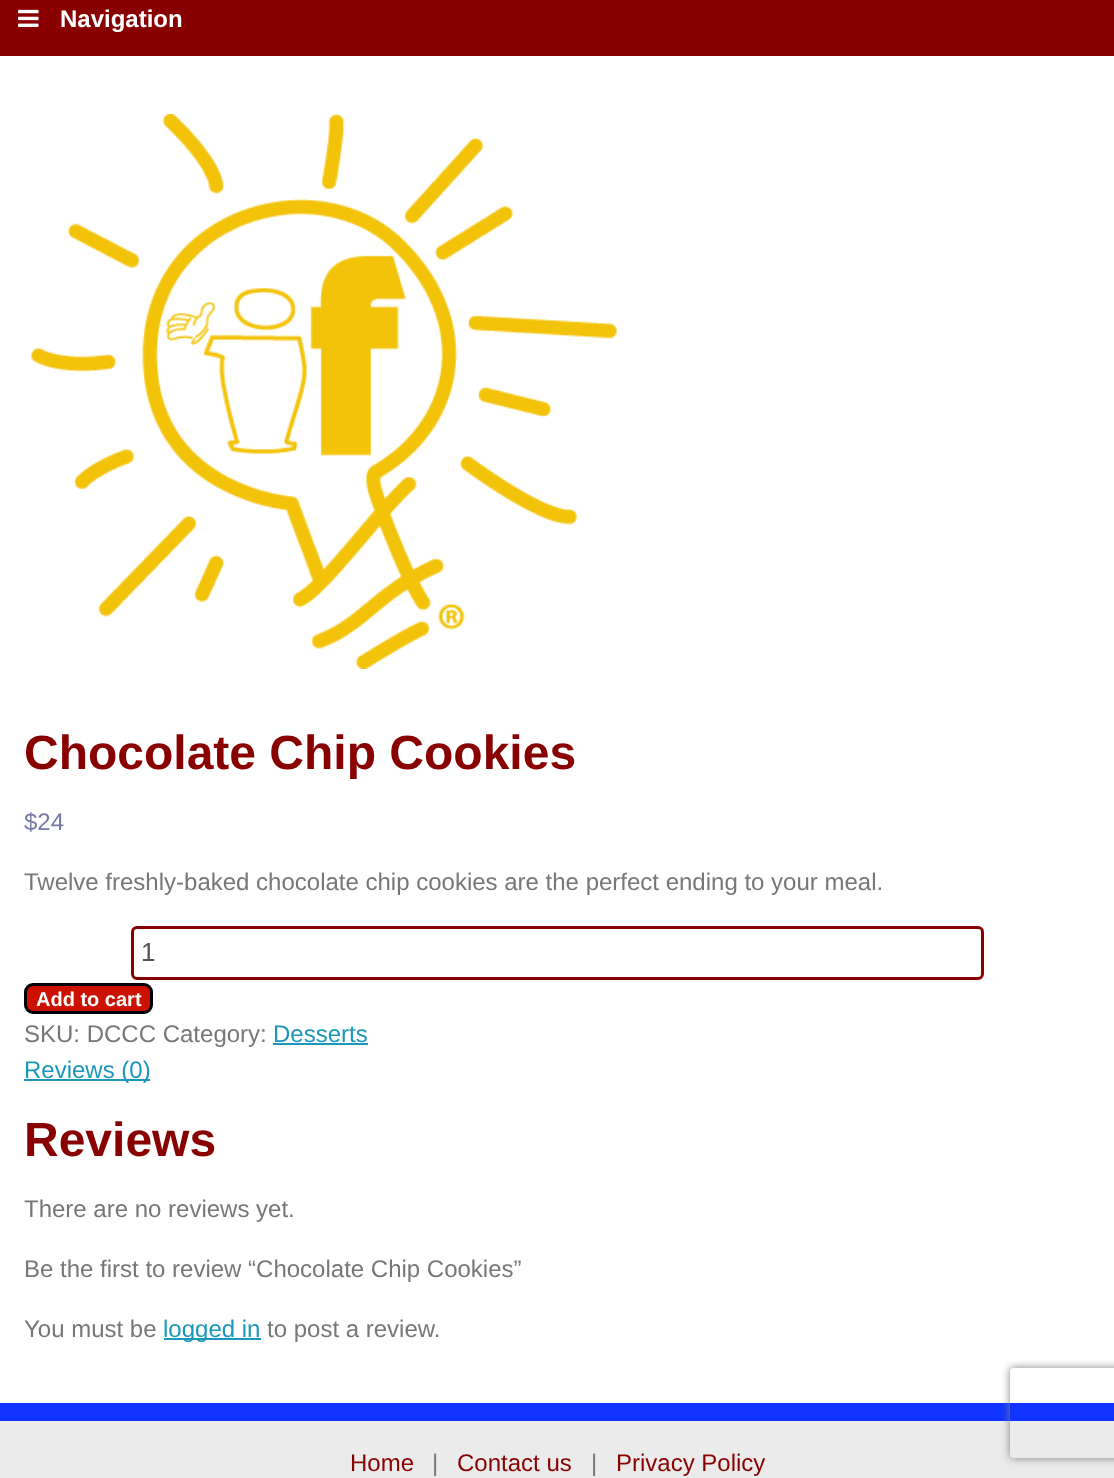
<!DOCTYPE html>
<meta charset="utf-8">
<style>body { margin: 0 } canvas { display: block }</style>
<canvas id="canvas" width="1114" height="1478"></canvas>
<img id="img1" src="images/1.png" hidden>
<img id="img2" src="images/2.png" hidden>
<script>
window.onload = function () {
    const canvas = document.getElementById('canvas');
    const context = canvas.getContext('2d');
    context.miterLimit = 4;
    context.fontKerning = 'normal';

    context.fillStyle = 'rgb(255, 255, 255)';
    context.fillRect(0, 0, 1114, 1478);
    context.fillStyle = 'rgb(136, 0, 0)';
    context.fillRect(0, 0, 1114, 56);
    context.drawImage(document.getElementById('img1'), 18, 9, 21, 18);
    context.drawImage(document.getElementById('img2'), 31, 114, 586, 555);
    context.beginPath();
    context.roundRect(132.5, 927.5, 850, 51, 4.5);
    context.strokeStyle = 'rgb(136, 0, 0)';
    context.lineWidth = 3;
    context.stroke();
    context.fillStyle = 'rgb(204, 17, 0)';
    context.beginPath();
    context.roundRect(25.5, 984.5, 126, 28, 7.5);
    context.fill();
    context.strokeStyle = 'rgb(0, 0, 0)';
    context.stroke();
    context.fillStyle = 'rgb(26, 151, 187)';
    context.fillRect(273, 1043, 95, 2);
    context.fillRect(24, 1079, 126, 2);
    context.fillRect(164, 1338, 97, 2);
    context.fillStyle = 'rgb(235, 235, 235)';
    context.fillRect(0, 1421, 1114, 57);
    context.fillStyle = 'rgb(17, 51, 255)';
    context.fillRect(0, 1403, 1114, 18);
    context.save();
    context.beginPath();
    context.moveTo(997, 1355);
    context.lineTo(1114, 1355);
    context.lineTo(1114, 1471);
    context.lineTo(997, 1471);
    context.closePath();
    context.moveTo(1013, 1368);
    context.lineTo(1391, 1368);
    context.bezierCurveTo(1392.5, 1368, 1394, 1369.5, 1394, 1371);
    context.lineTo(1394, 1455);
    context.bezierCurveTo(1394, 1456.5, 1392.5, 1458, 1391, 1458);
    context.lineTo(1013, 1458);
    context.bezierCurveTo(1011.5, 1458, 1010, 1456.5, 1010, 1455);
    context.lineTo(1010, 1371);
    context.bezierCurveTo(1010, 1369.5, 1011.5, 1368, 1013, 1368);
    context.closePath();
    context.clip('evenodd');
    context.fillStyle = 'rgb(128, 128, 128)';
    context.filter = 'blur(4px)';
    context.beginPath();
    context.roundRect(1010, 1368, 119, 90, 3);
    context.fill();
    context.filter = 'none';
    context.restore();
    context.font = 'bold 24px Liberation Sans';
    context.fillStyle = 'rgb(255, 255, 255)';
    context.fillText('Navigation', 60, 27);
    context.font = 'bold 48px Liberation Sans';
    context.fillStyle = 'rgb(136, 0, 0)';
    context.fillText('Chocolate Chip Cookies', 24, 769);
    context.font = '24px Liberation Sans';
    context.fillStyle = 'rgb(120, 120, 167)';
    context.fillText('$24', 24, 830);
    context.fillStyle = 'rgb(119, 119, 119)';
    context.fillText('Twelve freshly-baked chocolate chip cookies are the perfect ending to your meal.', 24, 890);
    context.font = '26px Liberation Sans';
    context.fillStyle = 'rgb(85, 85, 85)';
    context.fillText('1', 141, 961);
    context.font = 'bold 20px Liberation Sans';
    context.fillStyle = 'rgb(255, 255, 255)';
    context.fillText('Add to cart', 36, 1006);
    context.font = '24px Liberation Sans';
    context.fillStyle = 'rgb(119, 119, 119)';
    context.fillText('SKU: DCCC Category:', 24, 1042);
    context.fillStyle = 'rgb(26, 151, 187)';
    context.fillText('Desserts', 273, 1042);
    context.fillText('Reviews (0)', 24, 1078);
    context.font = 'bold 48px Liberation Sans';
    context.fillStyle = 'rgb(136, 0, 0)';
    context.fillText('Reviews', 24, 1156);
    context.font = '24px Liberation Sans';
    context.fillStyle = 'rgb(119, 119, 119)';
    context.fillText('There are no reviews yet.', 24, 1217);
    context.fillText('Be the first to review “Chocolate Chip Cookies”', 24, 1277);
    context.fillText('You must be', 24, 1337);
    context.fillStyle = 'rgb(26, 151, 187)';
    context.fillText('logged in', 163, 1337);
    context.fillStyle = 'rgb(119, 119, 119)';
    context.fillText('to post a review.', 267, 1337);
    context.fillStyle = 'rgb(136, 0, 0)';
    context.fillText('Home', 350, 1471);
    context.fillStyle = 'rgb(119, 119, 119)';
    context.fillText('|', 432, 1471);
    context.fillStyle = 'rgb(136, 0, 0)';
    context.fillText('Contact us', 457, 1471);
    context.fillStyle = 'rgb(119, 119, 119)';
    context.fillText('|', 591, 1471);
    context.fillStyle = 'rgb(136, 0, 0)';
    context.fillText('Privacy Policy', 616, 1471);
};
</script>
